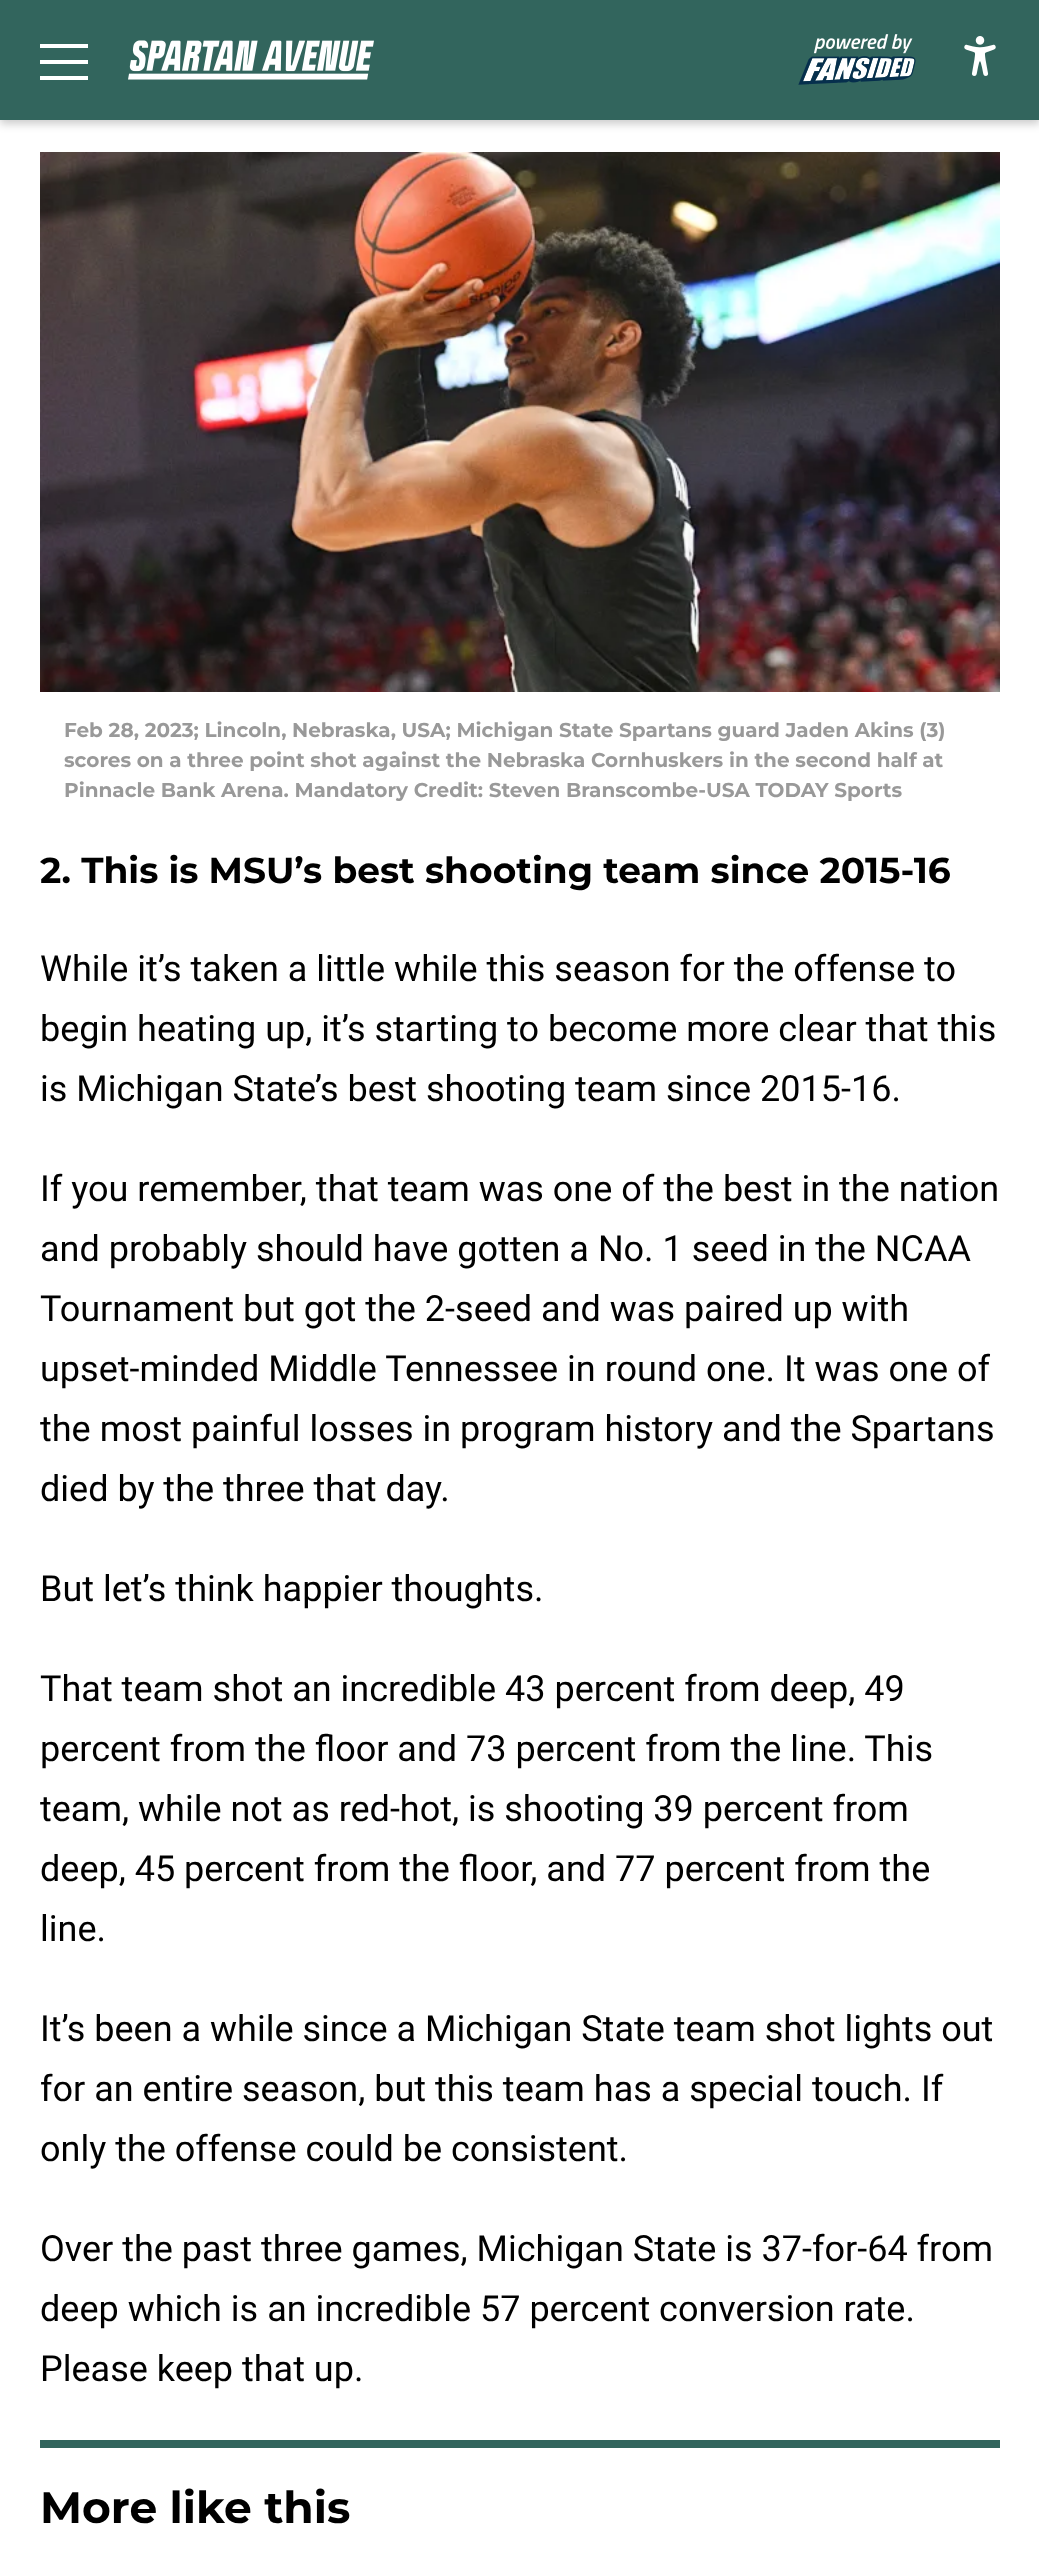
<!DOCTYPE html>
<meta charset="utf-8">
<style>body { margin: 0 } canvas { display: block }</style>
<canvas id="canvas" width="1039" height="2560"></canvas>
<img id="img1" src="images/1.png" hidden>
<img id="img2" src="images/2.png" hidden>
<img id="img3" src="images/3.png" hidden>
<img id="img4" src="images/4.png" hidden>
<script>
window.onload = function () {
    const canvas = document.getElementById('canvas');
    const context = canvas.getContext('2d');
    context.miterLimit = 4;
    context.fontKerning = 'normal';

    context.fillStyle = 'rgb(255, 255, 255)';
    context.fillRect(0, 0, 1039, 2560);
    context.fillStyle = 'rgba(0, 0, 0, 0.2)';
    context.filter = 'blur(4px)';
    context.beginPath();
    context.rect(0, 4, 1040, 120);
    context.fill();
    context.filter = 'none';
    context.fillStyle = 'rgb(50, 101, 93)';
    context.fillRect(0, 0, 1039, 120);
    context.fillStyle = 'rgb(255, 255, 255)';
    context.fillRect(40, 44, 48, 4);
    context.fillRect(40, 60, 48, 4);
    context.fillRect(40, 76, 48, 4);
    context.drawImage(document.getElementById('img1'), 128, 40, 246, 40);
    context.drawImage(document.getElementById('img2'), 798, 34, 118, 51);
    context.drawImage(document.getElementById('img3'), 964, 36, 32, 40);
    context.drawImage(document.getElementById('img4'), 40, 152, 960, 540);
    context.fillStyle = 'rgb(50, 101, 93)';
    context.fillRect(40, 2440, 960, 8);
    context.font = '100 20px Montserrat';
    context.fillStyle = 'rgb(153, 153, 153)';
    context.fillText('Feb 28, 2023; Lincoln, Nebraska, USA; Michigan State Spartans guard Jaden Akins (3)', 64, 737);
    context.fillText('scores on a three point shot against the Nebraska Cornhuskers in the second half at', 64, 767);
    context.fillText('Pinnacle Bank Arena. Mandatory Credit: Steven Branscombe-USA TODAY Sports', 64, 797);
    context.font = '100 36px Montserrat';
    context.fillStyle = 'rgb(0, 0, 0)';
    context.fillText('2. This is MSU’s best shooting team since 2015-16', 40, 883);
    context.font = '36px Roboto';
    context.fillText('While it’s taken a little while this season for the offense to', 40, 981);
    context.fillText('begin heating up, it’s starting to become more clear that this', 40, 1041);
    context.fillText('is Michigan State’s best shooting team since 2015-16.', 40, 1101);
    context.fillText('If you remember, that team was one of the best in the nation', 40, 1201);
    context.fillText('and probably should have gotten a No. 1 seed in the NCAA', 40, 1261);
    context.fillText('Tournament but got the 2-seed and was paired up with', 40, 1321);
    context.fillText('upset-minded Middle Tennessee in round one. It was one of', 40, 1381);
    context.fillText('the most painful losses in program history and the Spartans', 40, 1441);
    context.fillText('died by the three that day.', 40, 1501);
    context.fillText('But let’s think happier thoughts.', 40, 1601);
    context.fillText('That team shot an incredible 43 percent from deep, 49', 40, 1701);
    context.fillText('percent from the floor and 73 percent from the line. This', 40, 1761);
    context.fillText('team, while not as red-hot, is shooting 39 percent from', 40, 1821);
    context.fillText('deep, 45 percent from the floor, and 77 percent from the', 40, 1881);
    context.fillText('line.', 40, 1941);
    context.fillText('It’s been a while since a Michigan State team shot lights out', 40, 2041);
    context.fillText('for an entire season, but this team has a special touch. If', 40, 2101);
    context.fillText('only the offense could be consistent.', 40, 2161);
    context.fillText('Over the past three games, Michigan State is 37-for-64 from', 40, 2261);
    context.fillText('deep which is an incredible 57 percent conversion rate.', 40, 2321);
    context.fillText('Please keep that up.', 40, 2381);
    context.font = '100 44px Montserrat';
    context.fillText('More like this', 40, 2523);
};
</script>
